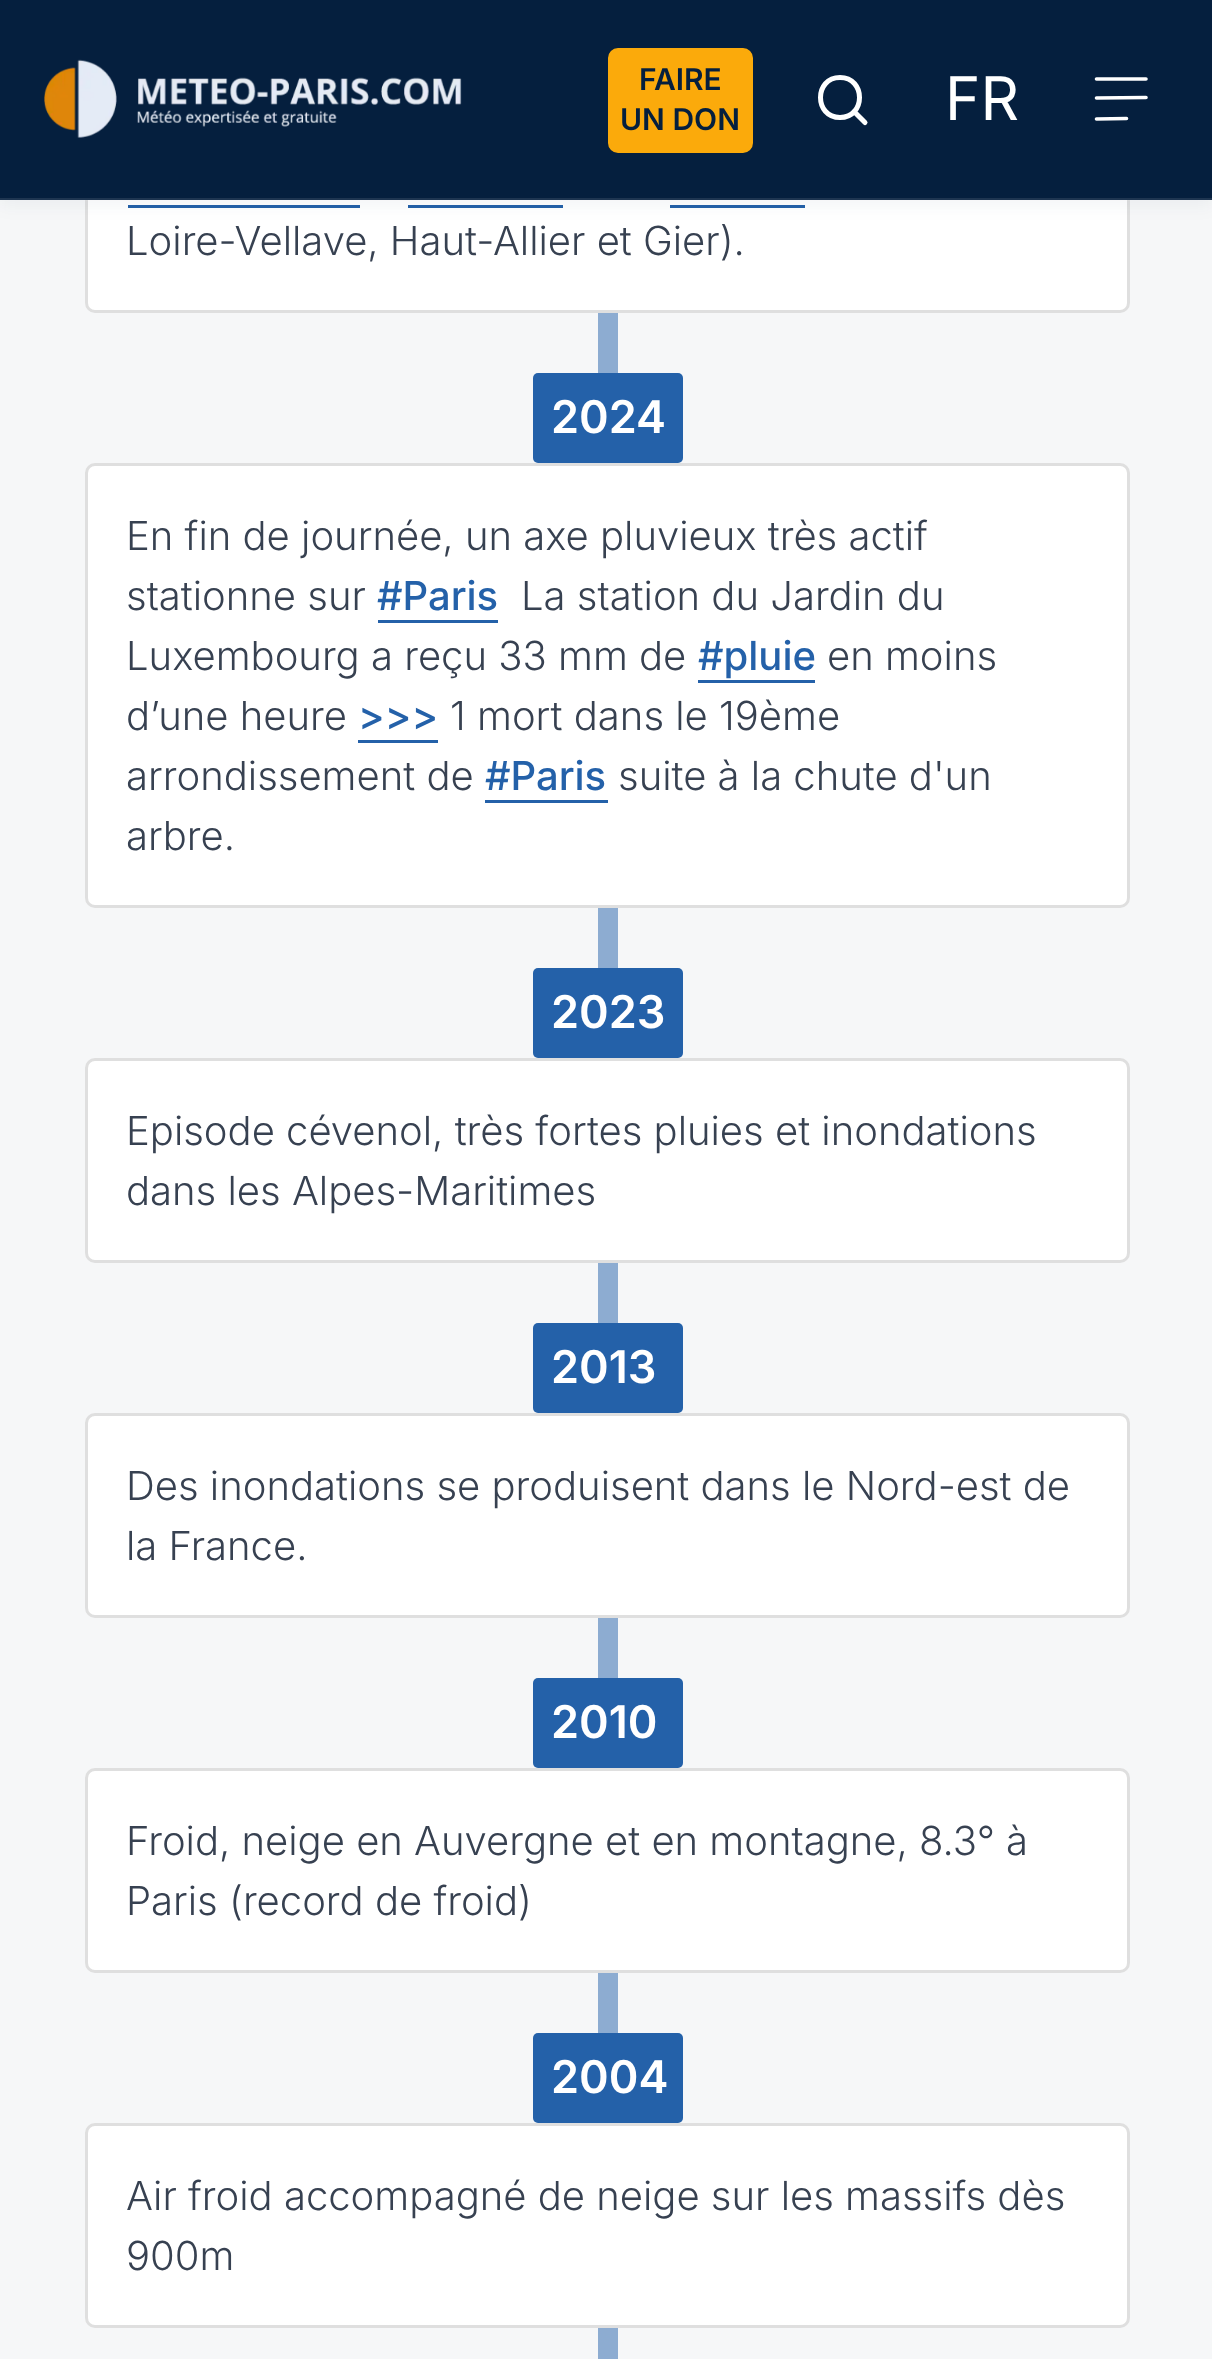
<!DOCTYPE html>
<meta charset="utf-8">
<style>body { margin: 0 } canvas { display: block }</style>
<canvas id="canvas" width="1212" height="2359"></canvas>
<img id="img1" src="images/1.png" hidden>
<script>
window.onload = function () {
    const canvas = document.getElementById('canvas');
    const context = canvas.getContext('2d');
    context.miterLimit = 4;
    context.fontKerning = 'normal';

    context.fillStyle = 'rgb(246, 247, 248)';
    context.fillRect(0, 0, 1212, 2359);
    context.fillStyle = 'rgb(255, 255, 255)';
    context.beginPath();
    context.roundRect(86.5, -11.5, 1042, 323, 8.5);
    context.fill();
    context.strokeStyle = 'rgb(223, 223, 223)';
    context.lineWidth = 3;
    context.stroke();
    context.fillStyle = 'rgb(36, 97, 169)';
    context.fillRect(128, 205, 232, 3);
    context.fillRect(408, 205, 155, 3);
    context.fillRect(670, 205, 135, 3);
    context.fillStyle = 'rgba(5, 31, 62, 0.05)';
    context.filter = 'blur(9px)';
    context.beginPath();
    context.rect(0, 5, 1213, 200);
    context.fill();
    context.filter = 'none';
    context.fillStyle = 'rgb(5, 31, 62)';
    context.fillRect(0, 0, 1212, 200);
    context.fillStyle = 'rgba(255, 255, 255, 0.1)';
    context.fillRect(0, 198, 1212, 3);
    context.drawImage(document.getElementById('img1'), 44, 59, 418, 79);
    context.fillStyle = 'rgb(251, 170, 11)';
    context.beginPath();
    context.roundRect(609.5, 49.5, 142, 102, 8.5);
    context.fill();
    context.strokeStyle = 'rgb(251, 170, 11)';
    context.stroke();
    context.beginPath();
    context.moveTo(840, 117.5);
    context.bezierCurveTo(866, 117.5, 866, 77.5, 840, 77.5);
    context.bezierCurveTo(814, 77.5, 814, 117.5, 840, 117.5);
    context.closePath();
    context.moveTo(865, 122.5);
    context.lineTo(854, 111.5);
    context.strokeStyle = 'rgb(255, 255, 255)';
    context.lineWidth = 5;
    context.lineCap = 'round';
    context.lineJoin = 'round';
    context.stroke();
    context.beginPath();
    context.moveTo(1096.5, 79);
    context.lineTo(1146, 79);
    context.moveTo(1096.5, 98);
    context.lineTo(1146, 97.5);
    context.moveTo(1096.5, 119);
    context.lineTo(1126.5, 118.5);
    context.lineWidth = 3.6;
    context.lineJoin = 'miter';
    context.stroke();
    context.fillStyle = 'rgb(141, 172, 209)';
    context.fillRect(598, 313, 20, 2046);
    context.fillStyle = 'rgb(36, 97, 169)';
    context.beginPath();
    context.roundRect(533, 373, 150, 90, 5);
    context.fill();
    context.fillStyle = 'rgb(255, 255, 255)';
    context.beginPath();
    context.roundRect(86.5, 464.5, 1042, 442, 8.5);
    context.fill();
    context.strokeStyle = 'rgb(223, 223, 223)';
    context.lineWidth = 3;
    context.stroke();
    context.fillStyle = 'rgb(36, 97, 169)';
    context.fillRect(378, 620, 120, 3);
    context.fillRect(698, 680, 117, 3);
    context.fillRect(358, 740, 80, 3);
    context.fillRect(485, 800, 123, 3);
    context.beginPath();
    context.roundRect(533, 968, 150, 90, 5);
    context.fill();
    context.fillStyle = 'rgb(255, 255, 255)';
    context.beginPath();
    context.roundRect(86.5, 1059.5, 1042, 202, 8.5);
    context.fill();
    context.stroke();
    context.fillStyle = 'rgb(36, 97, 169)';
    context.beginPath();
    context.roundRect(533, 1323, 150, 90, 5);
    context.fill();
    context.fillStyle = 'rgb(255, 255, 255)';
    context.beginPath();
    context.roundRect(86.5, 1414.5, 1042, 202, 8.5);
    context.fill();
    context.stroke();
    context.fillStyle = 'rgb(36, 97, 169)';
    context.beginPath();
    context.roundRect(533, 1678, 150, 90, 5);
    context.fill();
    context.fillStyle = 'rgb(255, 255, 255)';
    context.beginPath();
    context.roundRect(86.5, 1769.5, 1042, 202, 8.5);
    context.fill();
    context.stroke();
    context.fillStyle = 'rgb(36, 97, 169)';
    context.beginPath();
    context.roundRect(533, 2033, 150, 90, 5);
    context.fill();
    context.fillStyle = 'rgb(255, 255, 255)';
    context.beginPath();
    context.roundRect(86.5, 2124.5, 1042, 202, 8.5);
    context.fill();
    context.stroke();
    context.font = '600 30px Inter';
    context.fillStyle = 'rgb(5, 31, 62)';
    context.fillText('FAIRE', 639, 90);
    context.fillText('UN DON', 620, 130);
    context.font = '60px Inter';
    context.fillStyle = 'rgb(255, 255, 255)';
    context.fillText('FR', 945, 120);
    context.font = '300 40px Inter';
    context.fillStyle = 'rgb(55, 65, 81)';
    context.fillText('Loire-Vellave, Haut-Allier et Gier).', 126, 255);
    context.font = '600 45px Inter';
    context.fillStyle = 'rgb(255, 255, 255)';
    context.fillText('2024', 551, 433);
    context.font = '300 40px Inter';
    context.fillStyle = 'rgb(55, 65, 81)';
    context.fillText('En fin de journée, un axe pluvieux très actif', 126, 550);
    context.fillText('stationne sur', 126, 610);
    context.font = '500 40px Inter';
    context.fillStyle = 'rgb(36, 97, 169)';
    context.fillText('#Paris', 377, 610);
    context.font = '300 40px Inter';
    context.fillStyle = 'rgb(55, 65, 81)';
    context.fillText('La station du Jardin du', 521, 610);
    context.fillText('Luxembourg a reçu 33 mm de', 126, 670);
    context.font = '500 40px Inter';
    context.fillStyle = 'rgb(36, 97, 169)';
    context.fillText('#pluie', 698, 670);
    context.font = '300 40px Inter';
    context.fillStyle = 'rgb(55, 65, 81)';
    context.fillText('en moins', 827, 670);
    context.fillText('d’une heure', 126, 730);
    context.font = '500 40px Inter';
    context.fillStyle = 'rgb(36, 97, 169)';
    context.fillText('>>>', 358, 730);
    context.font = '300 40px Inter';
    context.fillStyle = 'rgb(55, 65, 81)';
    context.fillText('1 mort dans le 19ème', 450, 730);
    context.fillText('arrondissement de', 126, 790);
    context.font = '500 40px Inter';
    context.fillStyle = 'rgb(36, 97, 169)';
    context.fillText('#Paris', 485, 790);
    context.font = '300 40px Inter';
    context.fillStyle = 'rgb(55, 65, 81)';
    context.fillText('suite à la chute d\'un', 618, 790);
    context.fillText('arbre.', 126, 850);
    context.font = '600 45px Inter';
    context.fillStyle = 'rgb(255, 255, 255)';
    context.fillText('2023', 551, 1028);
    context.font = '300 40px Inter';
    context.fillStyle = 'rgb(55, 65, 81)';
    context.fillText('Episode cévenol, très fortes pluies et inondations', 126, 1145);
    context.fillText('dans les Alpes-Maritimes', 126, 1205);
    context.font = '600 45px Inter';
    context.fillStyle = 'rgb(255, 255, 255)';
    context.fillText('2013', 551, 1383);
    context.font = '300 40px Inter';
    context.fillStyle = 'rgb(55, 65, 81)';
    context.fillText('Des inondations se produisent dans le Nord-est de', 126, 1500);
    context.fillText('la France.', 126, 1560);
    context.font = '600 45px Inter';
    context.fillStyle = 'rgb(255, 255, 255)';
    context.fillText('2010', 551, 1738);
    context.font = '300 40px Inter';
    context.fillStyle = 'rgb(55, 65, 81)';
    context.fillText('Froid, neige en Auvergne et en montagne, 8.3° à', 126, 1855);
    context.fillText('Paris (record de froid)', 126, 1915);
    context.font = '600 45px Inter';
    context.fillStyle = 'rgb(255, 255, 255)';
    context.fillText('2004', 551, 2093);
    context.font = '300 40px Inter';
    context.fillStyle = 'rgb(55, 65, 81)';
    context.fillText('Air froid accompagné de neige sur les massifs dès', 126, 2210);
    context.fillText('900m', 126, 2270);
};
</script>
